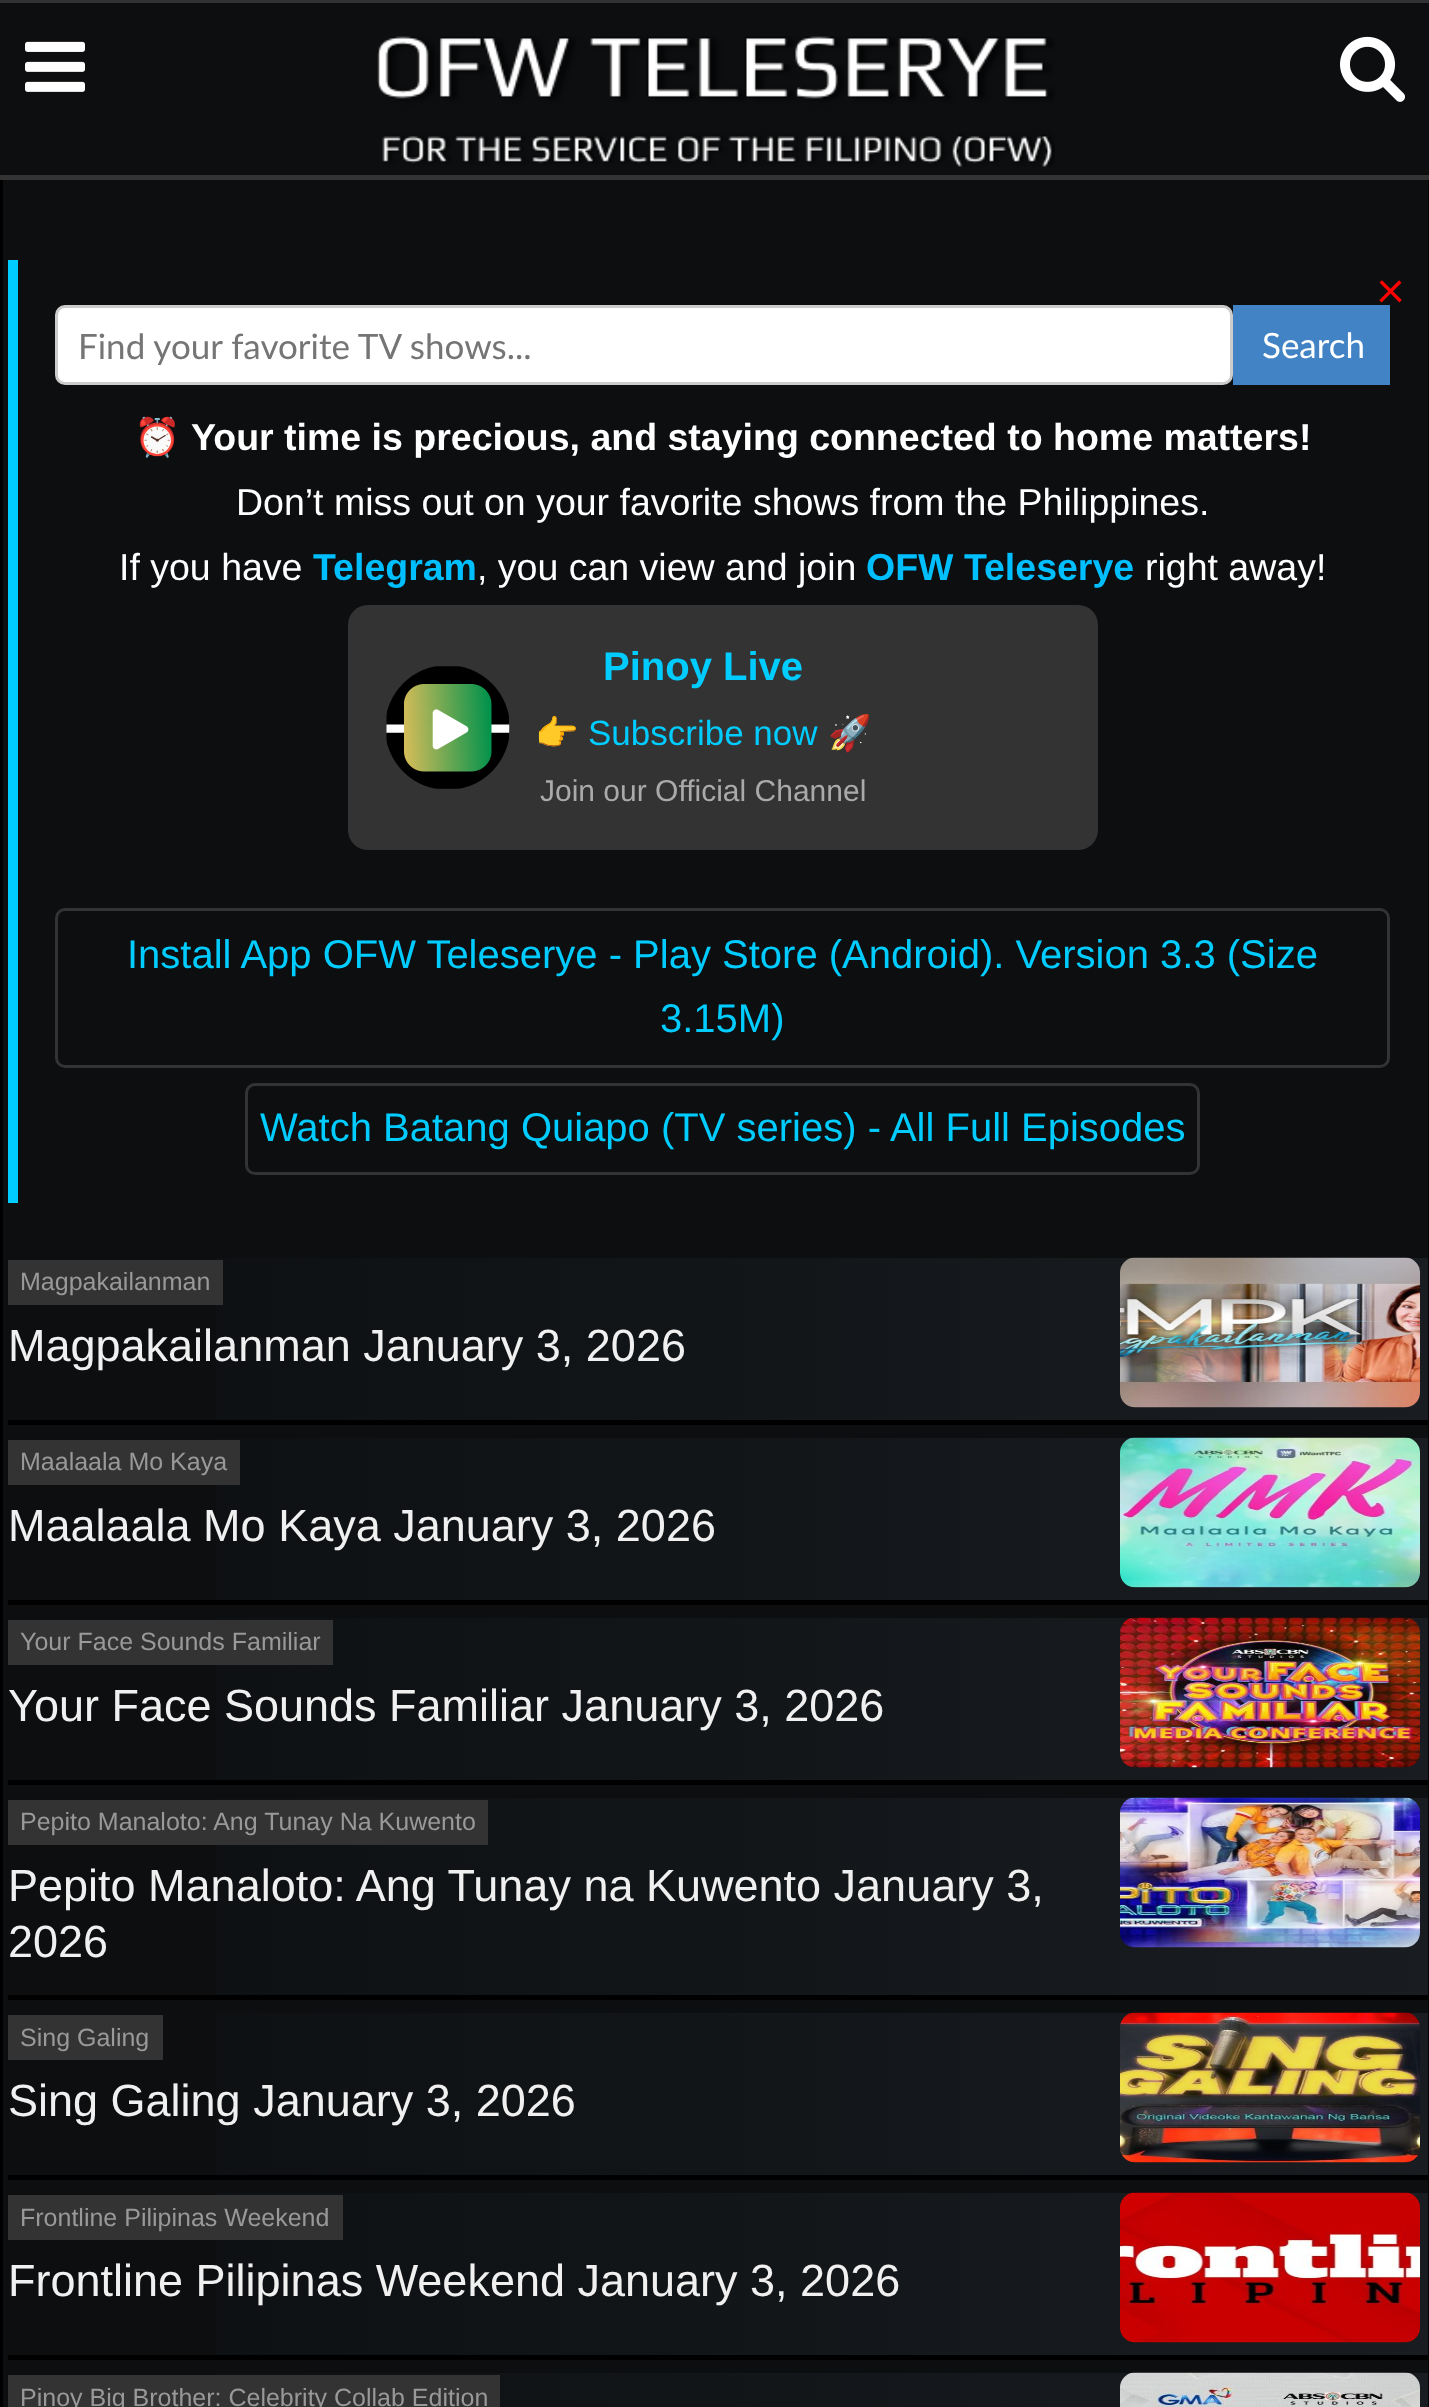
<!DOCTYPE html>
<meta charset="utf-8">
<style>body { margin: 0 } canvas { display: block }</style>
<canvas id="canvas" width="1429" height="2407"></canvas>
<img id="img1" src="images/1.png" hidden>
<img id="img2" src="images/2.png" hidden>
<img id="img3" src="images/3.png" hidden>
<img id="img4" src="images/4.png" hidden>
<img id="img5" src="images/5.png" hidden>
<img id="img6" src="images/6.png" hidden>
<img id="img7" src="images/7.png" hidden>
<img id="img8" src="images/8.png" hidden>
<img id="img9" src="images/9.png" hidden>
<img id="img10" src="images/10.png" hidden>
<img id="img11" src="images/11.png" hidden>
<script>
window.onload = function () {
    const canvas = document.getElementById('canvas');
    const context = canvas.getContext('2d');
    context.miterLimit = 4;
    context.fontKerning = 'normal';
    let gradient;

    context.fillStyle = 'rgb(0, 0, 0)';
    context.fillRect(0, 0, 1429, 2407);
    context.fillStyle = 'rgb(12, 14, 16)';
    context.fillRect(0, 3, 1429, 172);
    context.fillStyle = 'rgb(48, 50, 52)';
    context.fillRect(0, 0, 1429, 3);
    context.fillStyle = 'rgb(51, 51, 51)';
    context.fillRect(0, 175, 1429, 5);
    context.drawImage(document.getElementById('img1'), 25, 41, 60, 51);
    context.drawImage(document.getElementById('img2'), 377, 36, 678, 131);
    context.drawImage(document.getElementById('img3'), 1340, 36, 65, 66);
    context.fillStyle = 'rgb(12, 14, 16)';
    context.fillRect(3, 180, 1425, 2227);
    context.fillStyle = 'rgb(0, 204, 255)';
    context.fillRect(8, 260, 10, 943);
    context.fillStyle = 'rgb(255, 255, 255)';
    context.beginPath();
    context.roundRect(56.5, 306.5, 1175, 77, 8.5);
    context.fill();
    context.strokeStyle = 'rgb(204, 204, 204)';
    context.lineWidth = 3;
    context.stroke();
    context.fillStyle = 'rgb(65, 131, 196)';
    context.fillRect(1233, 305, 157, 80);
    context.fillStyle = 'rgb(51, 51, 51)';
    context.beginPath();
    context.roundRect(348, 605, 750, 245, 20);
    context.fill();
    context.drawImage(document.getElementById('img4'), 386, 666, 124, 123);
    context.beginPath();
    context.roundRect(56.5, 909.5, 1332, 157, 8.5);
    context.strokeStyle = 'rgb(51, 51, 51)';
    context.stroke();
    context.beginPath();
    context.roundRect(246.5, 1084.5, 952, 89, 8.5);
    context.stroke();
    gradient = context.createLinearGradient(1428, 1339, 7.5, 1339);
    gradient.addColorStop(0, 'rgb(25, 29, 33)');
    gradient.addColorStop(1, 'rgb(12, 14, 16)');
    gradient.addColorStop(1, 'rgb(6, 8, 8)');
    context.fillStyle = gradient;
    context.fillRect(216, 1258, 1212, 162);
    context.fillStyle = 'rgb(0, 0, 0)';
    context.fillRect(8, 1420, 1420, 5);
    context.fillStyle = 'rgb(51, 51, 51)';
    context.fillRect(8, 1260, 215, 45);
    context.drawImage(document.getElementById('img5'), 1120, 1257, 300, 151);
    gradient = context.createLinearGradient(1428, 1519, 7.5, 1519);
    gradient.addColorStop(0, 'rgb(25, 29, 33)');
    gradient.addColorStop(1, 'rgb(12, 14, 16)');
    gradient.addColorStop(1, 'rgb(6, 8, 8)');
    context.fillStyle = gradient;
    context.fillRect(216, 1438, 1212, 162);
    context.fillStyle = 'rgb(0, 0, 0)';
    context.fillRect(8, 1600, 1420, 5);
    context.fillStyle = 'rgb(51, 51, 51)';
    context.fillRect(8, 1440, 232, 45);
    context.drawImage(document.getElementById('img6'), 1120, 1437, 300, 151);
    gradient = context.createLinearGradient(1428, 1699, 7.5, 1699);
    gradient.addColorStop(0, 'rgb(25, 29, 33)');
    gradient.addColorStop(1, 'rgb(12, 14, 16)');
    gradient.addColorStop(1, 'rgb(6, 8, 8)');
    context.fillStyle = gradient;
    context.fillRect(216, 1618, 1212, 162);
    context.fillStyle = 'rgb(0, 0, 0)';
    context.fillRect(8, 1780, 1420, 5);
    context.fillStyle = 'rgb(51, 51, 51)';
    context.fillRect(8, 1620, 325, 45);
    context.drawImage(document.getElementById('img7'), 1120, 1617, 300, 151);
    gradient = context.createLinearGradient(1428, 1896, 7.5, 1896);
    gradient.addColorStop(0, 'rgb(25, 29, 33)');
    gradient.addColorStop(1, 'rgb(12, 14, 16)');
    gradient.addColorStop(1, 'rgb(6, 8, 8)');
    context.fillStyle = gradient;
    context.fillRect(216, 1798, 1212, 197);
    context.fillStyle = 'rgb(0, 0, 0)';
    context.fillRect(8, 1995, 1420, 5);
    context.fillStyle = 'rgb(51, 51, 51)';
    context.fillRect(8, 1800, 480, 45);
    context.drawImage(document.getElementById('img8'), 1120, 1797, 300, 151);
    gradient = context.createLinearGradient(1428, 2094, 7.5, 2094);
    gradient.addColorStop(0, 'rgb(25, 29, 33)');
    gradient.addColorStop(1, 'rgb(12, 14, 16)');
    gradient.addColorStop(1, 'rgb(6, 8, 8)');
    context.fillStyle = gradient;
    context.fillRect(216, 2013, 1212, 162);
    context.fillStyle = 'rgb(0, 0, 0)';
    context.fillRect(8, 2175, 1420, 5);
    context.fillStyle = 'rgb(51, 51, 51)';
    context.fillRect(8, 2015, 155, 45);
    context.drawImage(document.getElementById('img9'), 1120, 2012, 300, 151);
    gradient = context.createLinearGradient(1428, 2274, 7.5, 2274);
    gradient.addColorStop(0, 'rgb(25, 29, 33)');
    gradient.addColorStop(1, 'rgb(12, 14, 16)');
    gradient.addColorStop(1, 'rgb(6, 8, 8)');
    context.fillStyle = gradient;
    context.fillRect(216, 2193, 1212, 162);
    context.fillStyle = 'rgb(0, 0, 0)';
    context.fillRect(8, 2355, 1420, 5);
    context.fillStyle = 'rgb(51, 51, 51)';
    context.fillRect(8, 2195, 335, 45);
    context.drawImage(document.getElementById('img10'), 1120, 2192, 300, 151);
    gradient = context.createLinearGradient(1428, 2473, 7.5, 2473);
    gradient.addColorStop(0, 'rgb(25, 29, 33)');
    gradient.addColorStop(1, 'rgb(12, 14, 16)');
    gradient.addColorStop(1, 'rgb(6, 8, 8)');
    context.fillStyle = gradient;
    context.fillRect(216, 2373, 1212, 34);
    context.fillStyle = 'rgb(51, 51, 51)';
    context.fillRect(8, 2375, 492, 32);
    context.drawImage(document.getElementById('img11'), 1120, 2372, 300, 35);
    context.font = '50px Lato';
    context.fillStyle = 'rgb(255, 0, 0)';
    context.fillText('×', 1376, 308);
    context.font = '35px Lato';
    context.fillStyle = 'rgb(117, 117, 117)';
    context.fillText('Find your favorite TV shows...', 78, 359);
    context.fillStyle = 'rgb(255, 255, 255)';
    context.fillText('Search', 1262, 358);
    context.font = '37.5px Noto Color Emoji';
    context.fillText('⏰', 134, 450);
    context.font = 'bold 37.5px Liberation Sans';
    context.fillText('Your time is precious, and staying connected to home matters!', 191, 450);
    context.font = '37.5px Liberation Sans';
    context.fillText('Don’t miss out on your favorite shows from the Philippines.', 236, 515);
    context.fillText('If you have', 119, 580);
    context.font = 'bold 37.5px Liberation Sans';
    context.fillStyle = 'rgb(0, 191, 255)';
    context.fillText('Telegram', 313, 580);
    context.font = '37.5px Liberation Sans';
    context.fillStyle = 'rgb(255, 255, 255)';
    context.fillText(', you can view and join', 477, 580);
    context.font = 'bold 37.5px Liberation Sans';
    context.fillStyle = 'rgb(0, 191, 255)';
    context.fillText('OFW Teleserye', 866, 580);
    context.font = '37.5px Liberation Sans';
    context.fillStyle = 'rgb(255, 255, 255)';
    context.fillText('right away!', 1145, 580);
    context.font = 'bold 40px Liberation Sans';
    context.fillStyle = 'rgb(0, 204, 255)';
    context.fillText('Pinoy Live', 603, 680);
    context.font = '35px Noto Color Emoji';
    context.fillText('👉', 535, 745);
    context.font = '35px Liberation Sans';
    context.fillText('Subscribe now', 588, 745);
    context.font = '35px Noto Color Emoji';
    context.fillText('🚀', 828, 745);
    context.font = '30px Liberation Sans';
    context.fillStyle = 'rgb(170, 170, 170)';
    context.fillText('Join our Official Channel', 540, 801);
    context.font = '40px Liberation Sans';
    context.fillStyle = 'rgb(0, 204, 255)';
    context.fillText('Install App OFW Teleserye - Play Store (Android). Version 3.3 (Size', 127, 968);
    context.fillText('3.15M)', 660, 1032);
    context.fillText('Watch Batang Quiapo (TV series) - All Full Episodes', 260, 1141);
    context.font = '25px Liberation Sans';
    context.fillStyle = 'rgb(153, 153, 153)';
    context.fillText('Magpakailanman', 20, 1290);
    context.font = '45px Liberation Sans';
    context.fillStyle = 'rgb(240, 240, 240)';
    context.fillText('Magpakailanman January 3, 2026', 8, 1361);
    context.font = '25px Liberation Sans';
    context.fillStyle = 'rgb(153, 153, 153)';
    context.fillText('Maalaala Mo Kaya', 20, 1470);
    context.font = '45px Liberation Sans';
    context.fillStyle = 'rgb(240, 240, 240)';
    context.fillText('Maalaala Mo Kaya January 3, 2026', 8, 1541);
    context.font = '25px Liberation Sans';
    context.fillStyle = 'rgb(153, 153, 153)';
    context.fillText('Your Face Sounds Familiar', 20, 1650);
    context.font = '45px Liberation Sans';
    context.fillStyle = 'rgb(240, 240, 240)';
    context.fillText('Your Face Sounds Familiar January 3, 2026', 8, 1721);
    context.font = '25px Liberation Sans';
    context.fillStyle = 'rgb(153, 153, 153)';
    context.fillText('Pepito Manaloto: Ang Tunay Na Kuwento', 20, 1830);
    context.font = '45px Liberation Sans';
    context.fillStyle = 'rgb(240, 240, 240)';
    context.fillText('Pepito Manaloto: Ang Tunay na Kuwento January 3,', 8, 1901);
    context.fillText('2026', 8, 1957);
    context.font = '25px Liberation Sans';
    context.fillStyle = 'rgb(153, 153, 153)';
    context.fillText('Sing Galing', 20, 2046);
    context.font = '45px Liberation Sans';
    context.fillStyle = 'rgb(240, 240, 240)';
    context.fillText('Sing Galing January 3, 2026', 8, 2116);
    context.font = '25px Liberation Sans';
    context.fillStyle = 'rgb(153, 153, 153)';
    context.fillText('Frontline Pilipinas Weekend', 20, 2226);
    context.font = '45px Liberation Sans';
    context.fillStyle = 'rgb(240, 240, 240)';
    context.fillText('Frontline Pilipinas Weekend January 3, 2026', 8, 2296);
    context.font = '25px Liberation Sans';
    context.fillStyle = 'rgb(153, 153, 153)';
    context.fillText('Pinoy Big Brother: Celebrity Collab Edition', 20, 2406);
};
</script>
